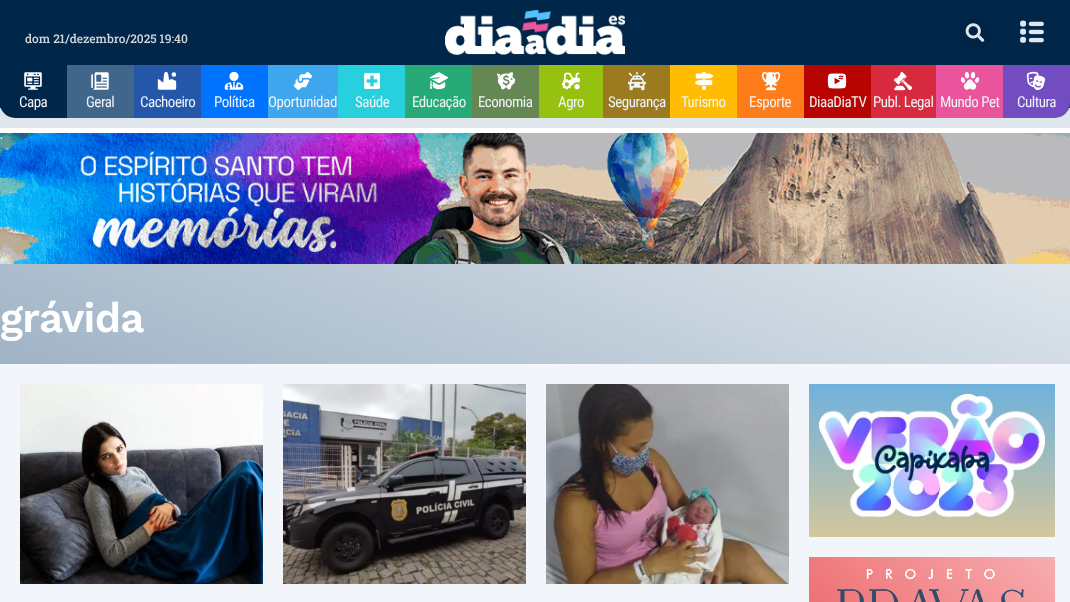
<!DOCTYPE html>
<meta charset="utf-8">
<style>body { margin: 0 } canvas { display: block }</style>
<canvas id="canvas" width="1070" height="602"></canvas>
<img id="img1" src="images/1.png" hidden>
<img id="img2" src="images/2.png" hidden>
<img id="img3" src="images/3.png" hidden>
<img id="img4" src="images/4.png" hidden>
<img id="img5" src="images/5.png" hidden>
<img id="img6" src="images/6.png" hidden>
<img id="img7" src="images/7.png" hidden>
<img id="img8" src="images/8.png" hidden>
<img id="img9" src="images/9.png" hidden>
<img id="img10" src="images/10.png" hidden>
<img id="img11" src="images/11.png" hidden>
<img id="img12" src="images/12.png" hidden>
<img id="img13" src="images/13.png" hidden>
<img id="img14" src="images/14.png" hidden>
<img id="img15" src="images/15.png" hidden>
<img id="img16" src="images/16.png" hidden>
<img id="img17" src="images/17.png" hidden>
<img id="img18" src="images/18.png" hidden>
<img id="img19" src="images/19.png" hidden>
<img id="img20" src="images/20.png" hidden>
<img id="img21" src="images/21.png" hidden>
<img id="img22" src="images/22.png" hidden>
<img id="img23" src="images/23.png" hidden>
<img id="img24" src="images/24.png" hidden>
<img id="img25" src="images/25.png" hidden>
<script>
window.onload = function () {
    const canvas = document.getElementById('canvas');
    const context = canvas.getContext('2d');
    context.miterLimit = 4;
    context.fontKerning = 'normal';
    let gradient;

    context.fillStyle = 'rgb(223, 230, 236)';
    context.fillRect(0, 0, 1070, 602);
    context.fillStyle = 'rgb(0, 38, 74)';
    context.fillRect(0, 0, 1070, 65);
    context.drawImage(document.getElementById('img1'), 445, 10, 180, 45);
    context.fillStyle = 'rgb(0, 36, 70)';
    context.beginPath();
    context.arc(975, 33, 17, 0, 2 * Math.PI);
    context.fill();
    context.drawImage(document.getElementById('img2'), 965, 23, 20, 19);
    context.drawImage(document.getElementById('img3'), 1020, 20, 24, 23);
    context.fillStyle = 'rgb(0, 38, 74)';
    context.fillRect(0, 103, 1070, 5);
    context.beginPath();
    context.roundRect(0, 65, 67, 53, [0, 0, 0, 15]);
    context.fill();
    context.drawImage(document.getElementById('img4'), 24, 72, 18, 18);
    context.fillStyle = 'rgb(64, 102, 140)';
    context.fillRect(67, 65, 67, 53);
    context.drawImage(document.getElementById('img5'), 91, 72, 18, 18);
    context.fillStyle = 'rgb(36, 86, 170)';
    context.fillRect(134, 65, 67, 53);
    context.drawImage(document.getElementById('img6'), 157, 71, 20, 19);
    context.fillStyle = 'rgb(0, 116, 255)';
    context.fillRect(201, 65, 67, 53);
    context.drawImage(document.getElementById('img7'), 224, 71, 20, 19);
    context.fillStyle = 'rgb(62, 166, 237)';
    context.fillRect(268, 65, 70, 53);
    context.drawImage(document.getElementById('img8'), 293, 71, 20, 20);
    context.fillStyle = 'rgb(40, 208, 221)';
    context.fillRect(338, 65, 67, 53);
    context.drawImage(document.getElementById('img9'), 364, 73, 16, 16);
    context.fillStyle = 'rgb(38, 170, 119)';
    context.fillRect(405, 65, 67, 53);
    context.drawImage(document.getElementById('img10'), 429, 72, 20, 18);
    context.fillStyle = 'rgb(100, 135, 84)';
    context.fillRect(472, 65, 67, 53);
    context.drawImage(document.getElementById('img11'), 496, 72, 20, 18);
    context.fillStyle = 'rgb(150, 193, 16)';
    context.fillRect(539, 65, 64, 53);
    context.drawImage(document.getElementById('img12'), 561, 72, 20, 18);
    context.fillStyle = 'rgb(156, 123, 32)';
    context.fillRect(603, 65, 67, 53);
    context.drawImage(document.getElementById('img13'), 627, 71, 20, 20);
    context.fillStyle = 'rgb(255, 188, 0)';
    context.fillRect(670, 65, 67, 53);
    context.drawImage(document.getElementById('img14'), 694, 71, 20, 20);
    context.fillStyle = 'rgb(255, 124, 26)';
    context.fillRect(737, 65, 67, 53);
    context.drawImage(document.getElementById('img15'), 761, 71, 20, 20);
    context.fillStyle = 'rgb(183, 4, 0)';
    context.fillRect(804, 65, 67, 53);
    context.drawImage(document.getElementById('img16'), 827, 73, 20, 16);
    context.fillStyle = 'rgb(216, 42, 63)';
    context.fillRect(871, 65, 65, 53);
    context.drawImage(document.getElementById('img17'), 893, 71, 20, 20);
    context.fillStyle = 'rgb(234, 84, 156)';
    context.fillRect(936, 65, 67, 53);
    context.drawImage(document.getElementById('img18'), 960, 71, 20, 19);
    context.fillStyle = 'rgb(114, 77, 193)';
    context.beginPath();
    context.roundRect(1003, 65, 67, 53, [0, 0, 15, 0]);
    context.fill();
    context.drawImage(document.getElementById('img19'), 1026, 71, 20, 20);
    context.fillStyle = 'rgb(255, 255, 255)';
    context.fillRect(0, 128, 1070, 5);
    context.drawImage(document.getElementById('img20'), 0, 133, 1070, 131);
    gradient = context.createLinearGradient(443, 543, 627, 85);
    gradient.addColorStop(0, 'rgb(159, 179, 198)');
    gradient.addColorStop(1, 'rgb(223, 230, 236)');
    context.fillStyle = gradient;
    context.fillRect(0, 264, 1070, 100);
    context.fillStyle = 'rgb(242, 245, 250)';
    context.fillRect(0, 364, 1070, 238);
    context.drawImage(document.getElementById('img21'), 20, 384, 243, 200);
    context.drawImage(document.getElementById('img22'), 283, 384, 243, 200);
    context.drawImage(document.getElementById('img23'), 546, 384, 243, 200);
    gradient = context.createLinearGradient(932, 384, 932, 537);
    gradient.addColorStop(0, 'rgb(111, 177, 220)');
    gradient.addColorStop(1, 'rgb(211, 198, 157)');
    context.fillStyle = gradient;
    context.fillRect(809, 384, 246, 153);
    context.drawImage(document.getElementById('img24'), 819, 394, 226, 123);
    gradient = context.createLinearGradient(836, 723, 1028, 530);
    gradient.addColorStop(0, 'rgb(235, 94, 98)');
    gradient.addColorStop(1, 'rgb(247, 173, 175)');
    context.fillStyle = gradient;
    context.fillRect(809, 557, 246, 45);
    context.drawImage(document.getElementById('img25'), 837, 569, 187, 33);
    context.font = '500 12px Roboto Slab';
    context.fillStyle = 'rgb(209, 213, 217)';
    context.fillText('dom 21/dezembro/2025 19:40', 25, 43);
    context.letterSpacing = '-0.5px';
    context.font = '15px Roboto Condensed';
    context.fillStyle = 'rgb(239, 244, 248)';
    context.fillText('Capa', 19, 107);
    context.fillText('Geral', 86, 107);
    context.fillText('Cachoeiro', 140, 107);
    context.fillText('Política', 214, 107);
    context.letterSpacing = '-0.4px';
    context.fillText('Oportunidad', 268, 107);
    context.letterSpacing = '-0.5px';
    context.fillText('Saúde', 355, 107);
    context.fillText('Educação', 412, 107);
    context.fillText('Economia', 478, 107);
    context.fillText('Agro', 558, 107);
    context.fillText('Segurança', 608, 107);
    context.fillText('Turismo', 681, 107);
    context.fillText('Esporte', 749, 107);
    context.fillText('DiaaDiaTV', 809, 107);
    context.fillText('Publ. Legal', 873, 107);
    context.fillText('Mundo Pet', 940, 107);
    context.fillText('Cultura', 1017, 107);
    context.letterSpacing = '-0.75px';
    context.font = '600 42px Work Sans';
    context.fillStyle = 'rgb(255, 255, 255)';
    context.fillText('grávida', 0, 332);
};
</script>
